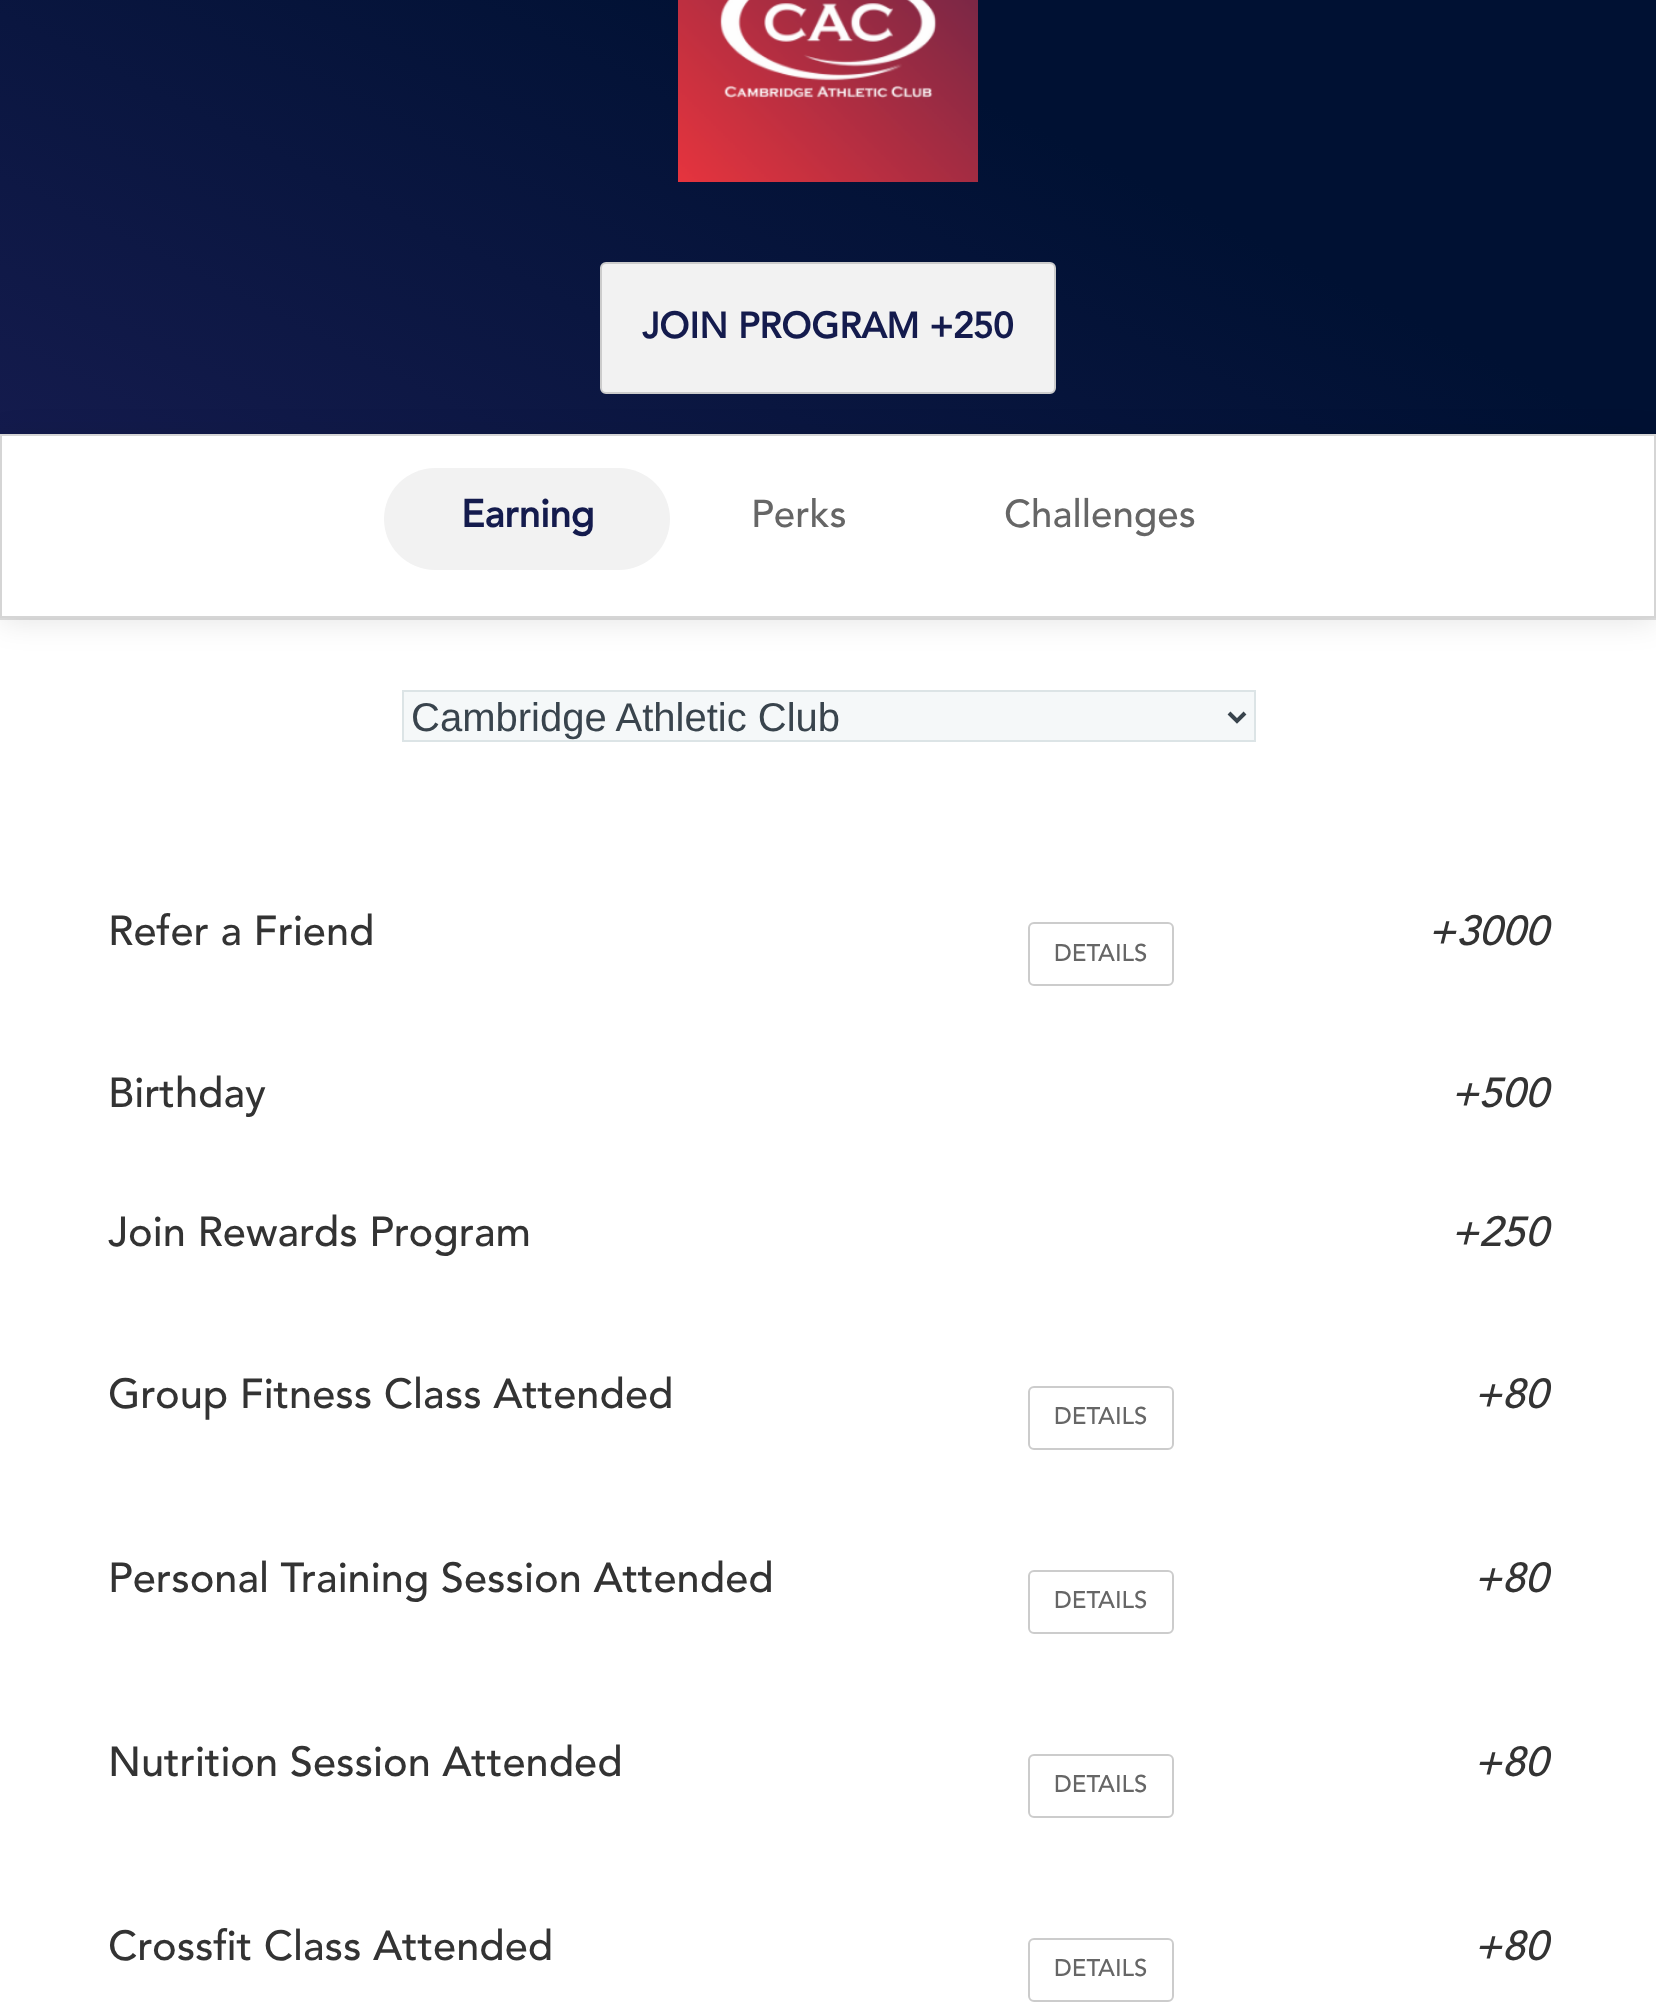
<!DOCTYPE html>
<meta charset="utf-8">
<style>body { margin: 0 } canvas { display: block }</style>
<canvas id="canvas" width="1656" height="2006"></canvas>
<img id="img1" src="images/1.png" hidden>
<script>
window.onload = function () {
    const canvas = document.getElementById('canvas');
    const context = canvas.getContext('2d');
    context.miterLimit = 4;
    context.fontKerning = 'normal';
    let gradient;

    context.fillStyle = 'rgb(255, 255, 255)';
    context.fillRect(0, 0, 1656, 2006);
    gradient = context.createLinearGradient(509, 693, 1147, -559);
    gradient.addColorStop(0, 'rgb(20, 27, 77)');
    gradient.addColorStop(0.53, 'rgb(0, 17, 51)');
    context.fillStyle = gradient;
    context.fillRect(0, 0, 1656, 434);
    context.drawImage(document.getElementById('img1'), 678, 0, 300, 182);
    context.fillStyle = 'rgb(242, 242, 242)';
    context.beginPath();
    context.roundRect(601, 263, 454, 130, 5);
    context.fill();
    context.strokeStyle = 'rgb(204, 204, 204)';
    context.lineWidth = 2;
    context.stroke();
    context.fillStyle = 'rgb(225, 225, 225)';
    context.fillRect(0, 618, 1656, 2);
    context.save();
    context.beginPath();
    context.moveTo(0, 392);
    context.lineTo(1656, 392);
    context.lineTo(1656, 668);
    context.lineTo(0, 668);
    context.closePath();
    context.moveTo(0, 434);
    context.lineTo(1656, 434);
    context.lineTo(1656, 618);
    context.lineTo(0, 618);
    context.closePath();
    context.clip('evenodd');
    context.fillStyle = 'rgba(0, 0, 0, 0.1)';
    context.filter = 'blur(15px)';
    context.beginPath();
    context.rect(0, 438, 1656, 184);
    context.fill();
    context.filter = 'none';
    context.restore();
    context.strokeStyle = 'rgb(213, 213, 213)';
    context.strokeRect(1, 435, 1654, 182);
    context.fillStyle = 'rgb(242, 242, 242)';
    context.beginPath();
    context.roundRect(384, 468, 286, 102, 51);
    context.fill();
    context.fillStyle = 'rgb(245, 248, 249)';
    context.beginPath();
    context.rect(403, 691, 852, 50);
    context.fill();
    context.strokeStyle = 'rgb(220, 228, 230)';
    context.stroke();
    context.beginPath();
    context.moveTo(1229, 713);
    context.lineTo(1237, 721);
    context.lineTo(1245, 713);
    context.strokeStyle = 'rgb(57, 68, 77)';
    context.lineWidth = 4;
    context.stroke();
    context.beginPath();
    context.roundRect(1029, 923, 144, 62, 5);
    context.strokeStyle = 'rgb(204, 204, 204)';
    context.lineWidth = 2;
    context.stroke();
    context.beginPath();
    context.roundRect(1029, 1387, 144, 62, 5);
    context.stroke();
    context.beginPath();
    context.roundRect(1029, 1571, 144, 62, 5);
    context.stroke();
    context.beginPath();
    context.roundRect(1029, 1755, 144, 62, 5);
    context.stroke();
    context.beginPath();
    context.roundRect(1029, 1939, 144, 62, 5);
    context.stroke();
    context.font = 'bold 36px Avenir';
    context.fillStyle = 'rgb(20, 27, 77)';
    context.fillText('JOIN PROGRAM +250', 642, 338);
    context.font = 'bold 38.5px Avenir';
    context.fillText('Earning', 461, 527);
    context.font = '500 38.5px Avenir';
    context.fillStyle = 'rgb(102, 102, 102)';
    context.fillText('Perks', 751, 527);
    context.fillText('Challenges', 1004, 527);
    context.font = '40px Liberation Sans';
    context.fillStyle = 'rgb(57, 68, 77)';
    context.fillText('Cambridge Athletic Club', 411, 731);
    context.font = '500 41.6px Avenir';
    context.fillStyle = 'rgb(51, 51, 51)';
    context.fillText('Refer a Friend', 108, 945);
    context.font = 'italic 500 41.6px Avenir';
    context.fillText('+3000', 1428, 945);
    context.font = '500 24px Avenir';
    context.fillStyle = 'rgb(102, 102, 102)';
    context.fillText('DETAILS', 1054, 961);
    context.font = '500 41.6px Avenir';
    context.fillStyle = 'rgb(51, 51, 51)';
    context.fillText('Birthday', 108, 1107);
    context.font = 'italic 500 41.6px Avenir';
    context.fillText('+500', 1451, 1107);
    context.font = '500 41.6px Avenir';
    context.fillText('Join Rewards Program', 108, 1246);
    context.font = 'italic 500 41.6px Avenir';
    context.fillText('+250', 1451, 1246);
    context.font = '500 41.6px Avenir';
    context.fillText('Group Fitness Class Attended', 108, 1408);
    context.font = 'italic 500 41.6px Avenir';
    context.fillText('+80', 1474, 1408);
    context.font = '500 24px Avenir';
    context.fillStyle = 'rgb(102, 102, 102)';
    context.fillText('DETAILS', 1054, 1424);
    context.font = '500 41.6px Avenir';
    context.fillStyle = 'rgb(51, 51, 51)';
    context.fillText('Personal Training Session Attended', 108, 1592);
    context.font = 'italic 500 41.6px Avenir';
    context.fillText('+80', 1474, 1592);
    context.font = '500 24px Avenir';
    context.fillStyle = 'rgb(102, 102, 102)';
    context.fillText('DETAILS', 1054, 1608);
    context.font = '500 41.6px Avenir';
    context.fillStyle = 'rgb(51, 51, 51)';
    context.fillText('Nutrition Session Attended', 108, 1776);
    context.font = 'italic 500 41.6px Avenir';
    context.fillText('+80', 1474, 1776);
    context.font = '500 24px Avenir';
    context.fillStyle = 'rgb(102, 102, 102)';
    context.fillText('DETAILS', 1054, 1792);
    context.font = '500 41.6px Avenir';
    context.fillStyle = 'rgb(51, 51, 51)';
    context.fillText('Crossfit Class Attended', 108, 1960);
    context.font = 'italic 500 41.6px Avenir';
    context.fillText('+80', 1474, 1960);
    context.font = '500 24px Avenir';
    context.fillStyle = 'rgb(102, 102, 102)';
    context.fillText('DETAILS', 1054, 1976);
};
</script>
